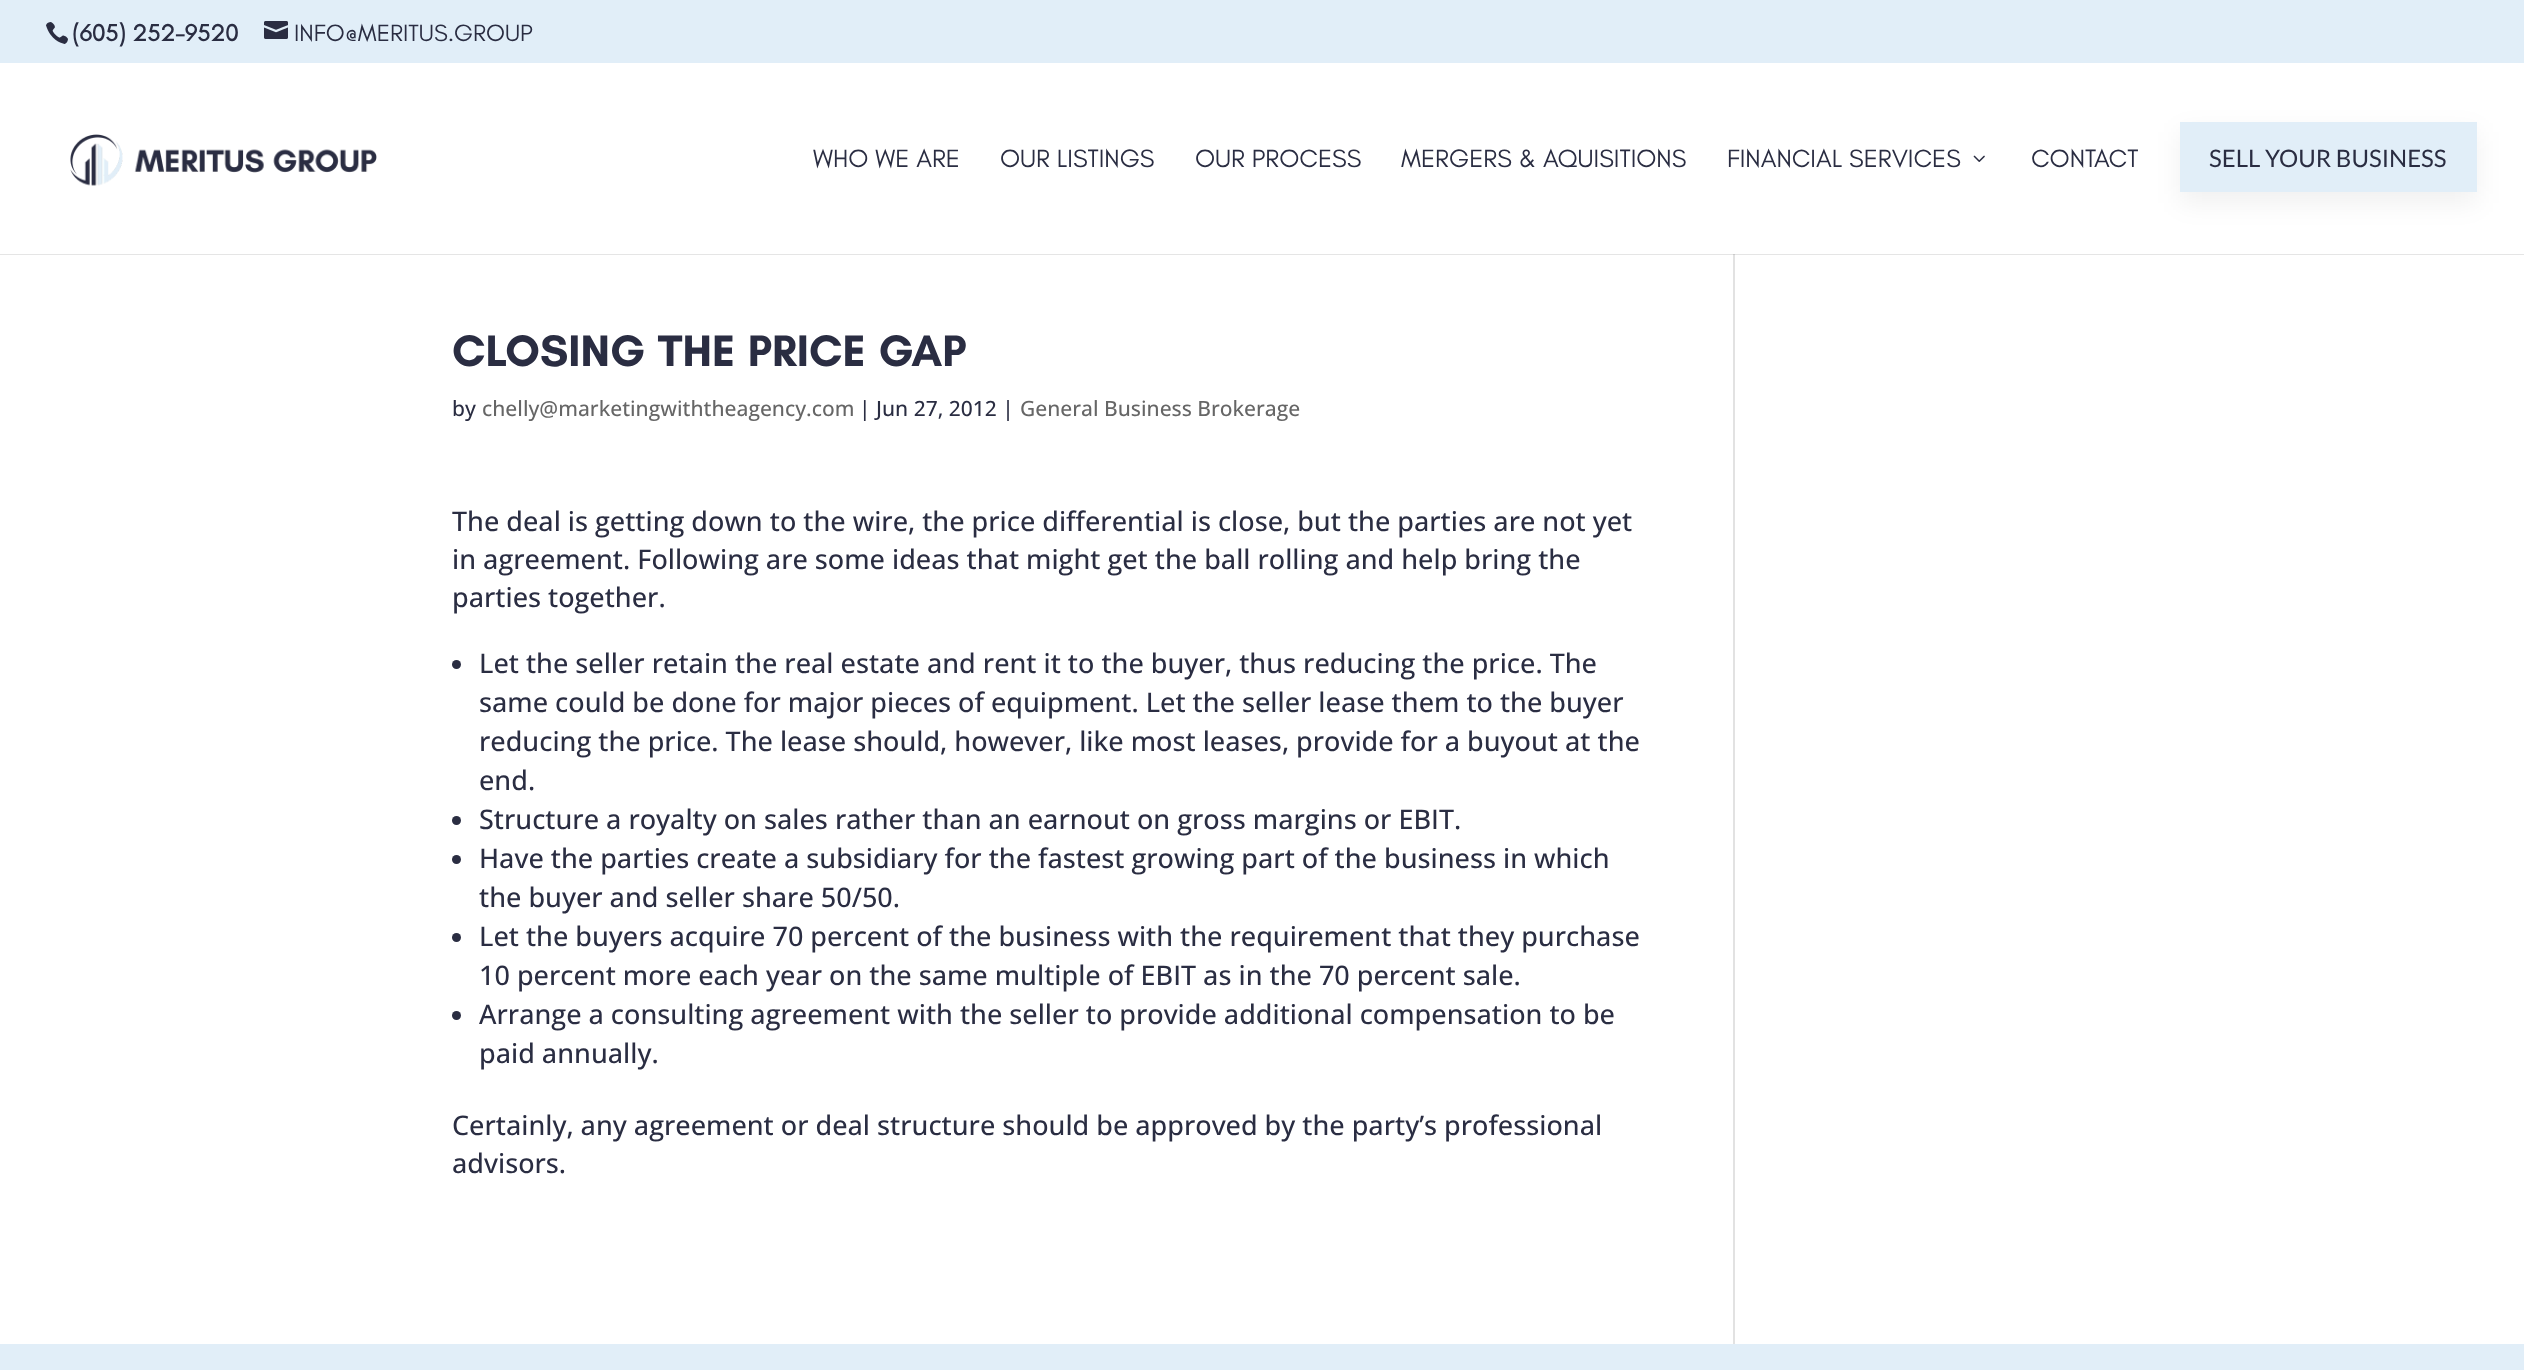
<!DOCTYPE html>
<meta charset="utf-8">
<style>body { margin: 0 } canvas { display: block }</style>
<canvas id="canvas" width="2524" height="1370"></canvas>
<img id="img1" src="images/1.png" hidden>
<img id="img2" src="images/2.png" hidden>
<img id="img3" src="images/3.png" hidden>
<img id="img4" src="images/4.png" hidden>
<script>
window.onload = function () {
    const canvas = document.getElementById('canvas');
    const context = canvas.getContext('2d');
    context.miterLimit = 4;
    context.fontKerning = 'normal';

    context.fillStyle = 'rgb(255, 255, 255)';
    context.fillRect(0, 0, 2524, 1370);
    context.fillStyle = 'rgb(225, 238, 248)';
    context.fillRect(0, 0, 2524, 63);
    context.drawImage(document.getElementById('img1'), 46, 22, 22, 22);
    context.drawImage(document.getElementById('img2'), 264, 21, 24, 18);
    context.fillStyle = 'rgb(226, 226, 226)';
    context.fillRect(1733, 254, 2, 1090);
    context.fillStyle = 'rgba(0, 0, 0, 0.1)';
    context.beginPath();
    context.moveTo(0, 254);
    context.lineTo(0, 255);
    context.lineTo(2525, 255);
    context.lineTo(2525, 65);
    context.lineTo(2524, 65);
    context.lineTo(2524, 254);
    context.closePath();
    context.fill();
    context.drawImage(document.getElementById('img3'), 70, 134, 307, 52);
    context.drawImage(document.getElementById('img4'), 1973, 155, 12, 7);
    context.fillStyle = 'rgba(0, 0, 0, 0.06)';
    context.filter = 'blur(13px)';
    context.beginPath();
    context.rect(2180, 132, 297, 71);
    context.fill();
    context.filter = 'none';
    context.fillStyle = 'rgb(225, 238, 248)';
    context.fillRect(2180, 122, 297, 70);
    context.fillStyle = 'rgb(42, 45, 66)';
    context.beginPath();
    context.arc(456.5, 664.5, 4.5, 0, 2 * Math.PI);
    context.fill();
    context.beginPath();
    context.arc(456.5, 820.5, 4.5, 0, 2 * Math.PI);
    context.fill();
    context.beginPath();
    context.arc(456.5, 859.5, 4.5, 0, 2 * Math.PI);
    context.fill();
    context.beginPath();
    context.arc(456.5, 937.5, 4.5, 0, 2 * Math.PI);
    context.fill();
    context.beginPath();
    context.arc(456.5, 1015.5, 4.5, 0, 2 * Math.PI);
    context.fill();
    context.fillStyle = 'rgb(225, 238, 248)';
    context.fillRect(0, 1344, 2524, 26);
    context.font = 'bold 24px "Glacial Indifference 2"';
    context.fillStyle = 'rgb(42, 45, 66)';
    context.fillText('(605) 252-9520', 72, 41);
    context.font = '24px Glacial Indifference';
    context.fillText('INFO@MERITUS.GROUP', 294, 41);
    context.font = '25.5px Glacial Indifference';
    context.fillText('WHO WE ARE', 813, 167);
    context.fillText('OUR LISTINGS', 1000, 167);
    context.fillText('OUR PROCESS', 1195, 167);
    context.fillText('MERGERS & AQUISITIONS', 1401, 167);
    context.fillText('FINANCIAL SERVICES', 1727, 167);
    context.fillText('CONTACT', 2031, 167);
    context.font = '24px Lato';
    context.fillText('SELL YOUR BUSINESS', 2209, 167);
    context.wordSpacing = '1.5px';
    context.font = 'bold 45px Glacial Indifference';
    context.fillText('CLOSING THE PRICE GAP', 452, 366);
    context.wordSpacing = '0px';
    context.font = '500 21px Open Sans';
    context.fillText('by', 452, 416);
    context.fillStyle = 'rgb(102, 102, 102)';
    context.fillText('chelly@marketingwiththeagency.com', 482, 416);
    context.fillStyle = 'rgb(42, 45, 66)';
    context.fillText('| Jun 27, 2012 |', 859, 416);
    context.fillStyle = 'rgb(102, 102, 102)';
    context.fillText('General Business Brokerage', 1020, 416);
    context.font = '500 27px Open Sans';
    context.fillStyle = 'rgb(42, 45, 66)';
    context.fillText('The deal is getting down to the wire, the price differential is close, but the parties are not yet', 452, 531);
    context.fillText('in agreement. Following are some ideas that might get the ball rolling and help bring the', 452, 569);
    context.fillText('parties together.', 452, 607);
    context.fillText('Let the seller retain the real estate and rent it to the buyer, thus reducing the price. The', 479, 673);
    context.fillText('same could be done for major pieces of equipment. Let the seller lease them to the buyer', 479, 712);
    context.fillText('reducing the price. The lease should, however, like most leases, provide for a buyout at the', 479, 751);
    context.fillText('end.', 479, 790);
    context.fillText('Structure a royalty on sales rather than an earnout on gross margins or EBIT.', 479, 829);
    context.fillText('Have the parties create a subsidiary for the fastest growing part of the business in which', 479, 868);
    context.fillText('the buyer and seller share 50/50.', 479, 907);
    context.fillText('Let the buyers acquire 70 percent of the business with the requirement that they purchase', 479, 946);
    context.fillText('10 percent more each year on the same multiple of EBIT as in the 70 percent sale.', 479, 985);
    context.fillText('Arrange a consulting agreement with the seller to provide additional compensation to be', 479, 1024);
    context.fillText('paid annually.', 479, 1063);
    context.fillText('Certainly, any agreement or deal structure should be approved by the party’s professional', 452, 1135);
    context.fillText('advisors.', 452, 1173);
};
</script>
